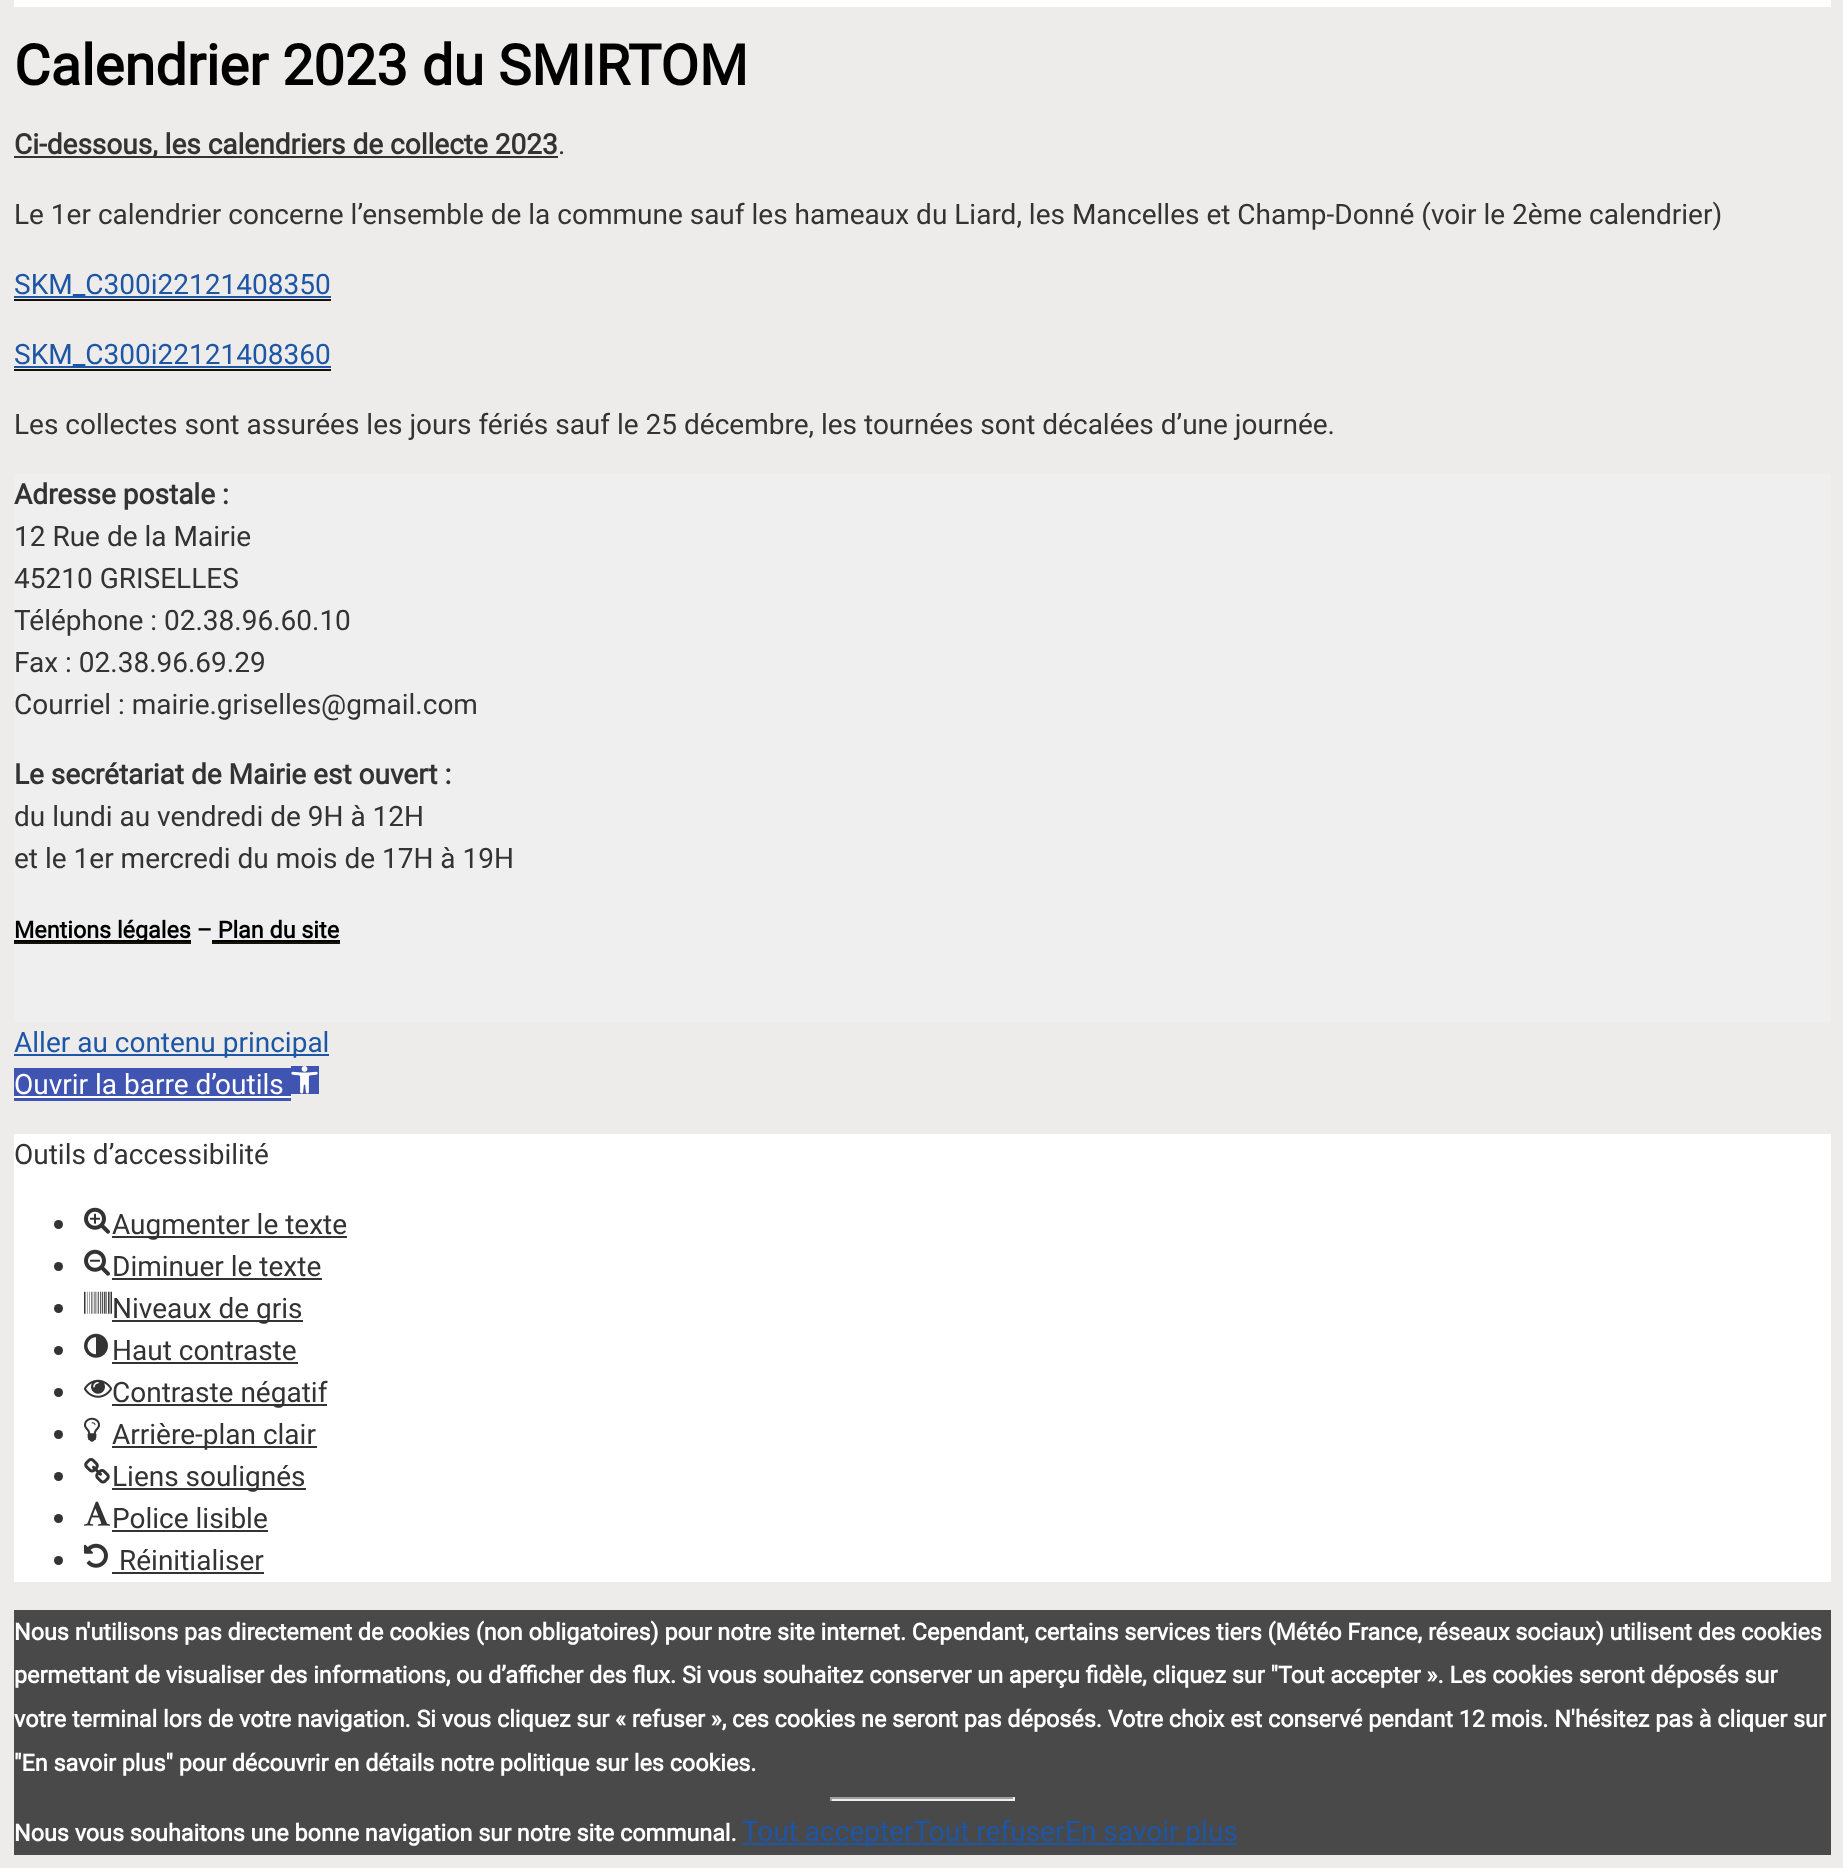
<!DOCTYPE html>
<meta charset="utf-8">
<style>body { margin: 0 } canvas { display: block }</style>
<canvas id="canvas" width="1843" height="1868"></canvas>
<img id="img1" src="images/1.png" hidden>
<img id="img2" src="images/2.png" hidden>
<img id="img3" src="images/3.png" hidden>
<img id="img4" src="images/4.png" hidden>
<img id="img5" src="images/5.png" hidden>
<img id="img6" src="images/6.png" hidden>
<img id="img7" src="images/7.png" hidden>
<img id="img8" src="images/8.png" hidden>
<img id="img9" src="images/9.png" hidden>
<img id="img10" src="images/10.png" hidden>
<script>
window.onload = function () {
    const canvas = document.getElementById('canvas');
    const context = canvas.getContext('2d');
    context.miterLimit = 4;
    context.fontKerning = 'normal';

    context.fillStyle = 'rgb(238, 236, 235)';
    context.fillRect(0, 0, 1843, 1868);
    context.fillStyle = 'rgb(255, 255, 255)';
    context.fillRect(14, 0, 1817, 7);
    context.fillStyle = 'rgb(51, 51, 51)';
    context.fillRect(14, 156, 544, 2);
    context.fillStyle = 'rgb(23, 17, 8)';
    context.fillRect(14, 299, 317, 2);
    context.fillStyle = 'rgb(30, 86, 166)';
    context.fillRect(14, 296, 317, 2);
    context.fillStyle = 'rgb(23, 17, 8)';
    context.fillRect(14, 369, 317, 2);
    context.fillStyle = 'rgb(30, 86, 166)';
    context.fillRect(14, 366, 317, 2);
    context.fillStyle = 'rgb(239, 239, 239)';
    context.fillRect(14, 474, 1817, 548);
    context.fillStyle = 'rgb(23, 17, 8)';
    context.fillRect(14, 942, 177, 2);
    context.fillStyle = 'rgb(0, 0, 0)';
    context.fillRect(14, 940, 177, 2);
    context.fillRect(212, 940, 128, 2);
    context.fillStyle = 'rgb(30, 86, 166)';
    context.fillRect(14, 1054, 315, 2);
    context.fillStyle = 'rgb(64, 84, 178)';
    context.fillRect(14, 1068, 277, 33);
    context.fillRect(291, 1066, 28, 28);
    context.fillStyle = 'rgb(255, 255, 255)';
    context.fillRect(14, 1096, 277, 2);
    context.drawImage(document.getElementById('img1'), 291, 1066, 27, 28);
    context.fillRect(14, 1134, 1817, 448);
    context.fillStyle = 'rgb(51, 51, 51)';
    context.beginPath();
    context.arc(58.5, 1224.5, 4.5, 0, 2 * Math.PI);
    context.fill();
    context.drawImage(document.getElementById('img2'), 84, 1207, 26, 27);
    context.fillRect(112, 1236, 235, 2);
    context.beginPath();
    context.arc(58.5, 1266.5, 4.5, 0, 2 * Math.PI);
    context.fill();
    context.drawImage(document.getElementById('img3'), 84, 1249, 26, 27);
    context.fillRect(112, 1278, 210, 2);
    context.beginPath();
    context.arc(58.5, 1308.5, 4.5, 0, 2 * Math.PI);
    context.fill();
    context.drawImage(document.getElementById('img4'), 84, 1291, 28, 23);
    context.fillRect(112, 1320, 191, 2);
    context.beginPath();
    context.arc(58.5, 1350.5, 4.5, 0, 2 * Math.PI);
    context.fill();
    context.drawImage(document.getElementById('img5'), 84, 1333, 24, 25);
    context.fillRect(112, 1362, 186, 2);
    context.beginPath();
    context.arc(58.5, 1392.5, 4.5, 0, 2 * Math.PI);
    context.fill();
    context.drawImage(document.getElementById('img6'), 84, 1379, 28, 19);
    context.fillRect(112, 1404, 215, 2);
    context.beginPath();
    context.arc(58.5, 1434.5, 4.5, 0, 2 * Math.PI);
    context.fill();
    context.drawImage(document.getElementById('img7'), 84, 1417, 16, 25);
    context.fillRect(112, 1446, 205, 2);
    context.beginPath();
    context.arc(58.5, 1476.5, 4.5, 0, 2 * Math.PI);
    context.fill();
    context.drawImage(document.getElementById('img8'), 84, 1458, 26, 26);
    context.fillRect(112, 1488, 194, 2);
    context.beginPath();
    context.arc(58.5, 1518.5, 4.5, 0, 2 * Math.PI);
    context.fill();
    context.drawImage(document.getElementById('img9'), 84, 1501, 26, 25);
    context.fillRect(112, 1530, 156, 2);
    context.beginPath();
    context.arc(58.5, 1560.5, 4.5, 0, 2 * Math.PI);
    context.fill();
    context.drawImage(document.getElementById('img10'), 84, 1543, 24, 25);
    context.fillRect(112, 1572, 152, 2);
    context.fillStyle = 'rgb(73, 73, 73)';
    context.fillRect(14, 1610, 1817, 245);
    context.fillStyle = 'rgb(159, 159, 159)';
    context.fillRect(830, 1797, 185, 2);
    context.fillStyle = 'rgb(238, 238, 238)';
    context.fillRect(1013, 1797, 2, 4);
    context.fillRect(830, 1799, 185, 2);
    context.fillStyle = 'rgb(159, 159, 159)';
    context.fillRect(830, 1797, 2, 4);
    context.fillStyle = 'rgb(30, 86, 166)';
    context.fillRect(742, 1843, 322, 2);
    context.fillRect(1064, 1843, 173, 2);
    context.font = 'bold 56px Roboto';
    context.fillStyle = 'rgb(0, 0, 0)';
    context.fillText('Calendrier 2023 du SMIRTOM', 14, 85);
    context.font = 'bold 28px Roboto';
    context.fillStyle = 'rgb(51, 51, 51)';
    context.fillText('Ci-dessous, les calendriers de collecte 2023', 14, 154);
    context.font = '28px Roboto';
    context.fillText('.', 558, 154);
    context.fillText('Le 1er calendrier concerne l’ensemble de la commune sauf les hameaux du Liard, les Mancelles et Champ-Donné (voir le 2ème calendrier)', 14, 224);
    context.fillStyle = 'rgb(30, 86, 166)';
    context.fillText('SKM_C300i22121408350', 14, 294);
    context.fillText('SKM_C300i22121408360', 14, 364);
    context.fillStyle = 'rgb(51, 51, 51)';
    context.fillText('Les collectes sont assurées les jours fériés sauf le 25 décembre, les tournées sont décalées d’une journée.', 14, 434);
    context.font = 'bold 28px Roboto';
    context.fillText('Adresse postale :', 14, 504);
    context.font = '28px Roboto';
    context.fillText('12 Rue de la Mairie', 14, 546);
    context.fillText('45210 GRISELLES', 14, 588);
    context.fillText('Téléphone : 02.38.96.60.10', 14, 630);
    context.fillText('Fax : 02.38.96.69.29', 14, 672);
    context.fillText('Courriel : mairie.griselles@gmail.com', 14, 714);
    context.font = 'bold 28px Roboto';
    context.fillText('Le secrétariat de Mairie est ouvert :', 14, 784);
    context.font = '28px Roboto';
    context.fillText('du lundi au vendredi de 9H à 12H', 14, 826);
    context.fillText('et le 1er mercredi du mois de 17H à 19H', 14, 868);
    context.font = 'bold 23.33px Roboto';
    context.fillStyle = 'rgb(0, 0, 0)';
    context.fillText('Mentions légales – Plan du site', 14, 938);
    context.fillStyle = 'rgb(23, 17, 8)';
    context.fillRect(212, 942, 128, 2);
    context.font = '28px Roboto';
    context.fillStyle = 'rgb(30, 86, 166)';
    context.fillText('Aller au contenu principal', 14, 1052);
    context.fillStyle = 'rgb(255, 255, 255)';
    context.fillText('Ouvrir la barre d’outils', 14, 1094);
    context.fillStyle = 'rgb(51, 51, 51)';
    context.fillText('Outils d’accessibilité', 14, 1164);
    context.fillText('Augmenter le texte', 112, 1234);
    context.fillText('Diminuer le texte', 112, 1276);
    context.fillText('Niveaux de gris', 112, 1318);
    context.fillText('Haut contraste', 112, 1360);
    context.fillText('Contraste négatif', 112, 1402);
    context.fillText('Arrière-plan clair', 112, 1444);
    context.fillText('Liens soulignés', 112, 1486);
    context.fillText('Police lisible', 112, 1528);
    context.fillText('Réinitialiser', 119, 1570);
    context.font = 'bold 23.33px Roboto';
    context.fillStyle = 'rgb(255, 255, 255)';
    context.fillText('Nous n\'utilisons pas directement de cookies (non obligatoires) pour notre site internet. Cependant, certains services tiers (Météo France, réseaux sociaux) utilisent des cookies', 14, 1640);
    context.fillText('permettant de visualiser des informations, ou d’afficher des flux. Si vous souhaitez conserver un aperçu fidèle, cliquez sur "Tout accepter ». Les cookies seront déposés sur', 14, 1683);
    context.fillText('votre terminal lors de votre navigation. Si vous cliquez sur « refuser », ces cookies ne seront pas déposés. Votre choix est conservé pendant 12 mois. N\'hésitez pas à cliquer sur', 14, 1727);
    context.fillText('"En savoir plus" pour découvrir en détails notre politique sur les cookies.', 14, 1771);
    context.fillText('Nous vous souhaitons une bonne navigation sur notre site communal.', 14, 1841);
    context.font = '28px Roboto';
    context.fillStyle = 'rgb(30, 86, 166)';
    context.fillText('Tout accepterTout refuser', 742, 1841);
    context.fillText('En savoir plus', 1065, 1841);
};
</script>
